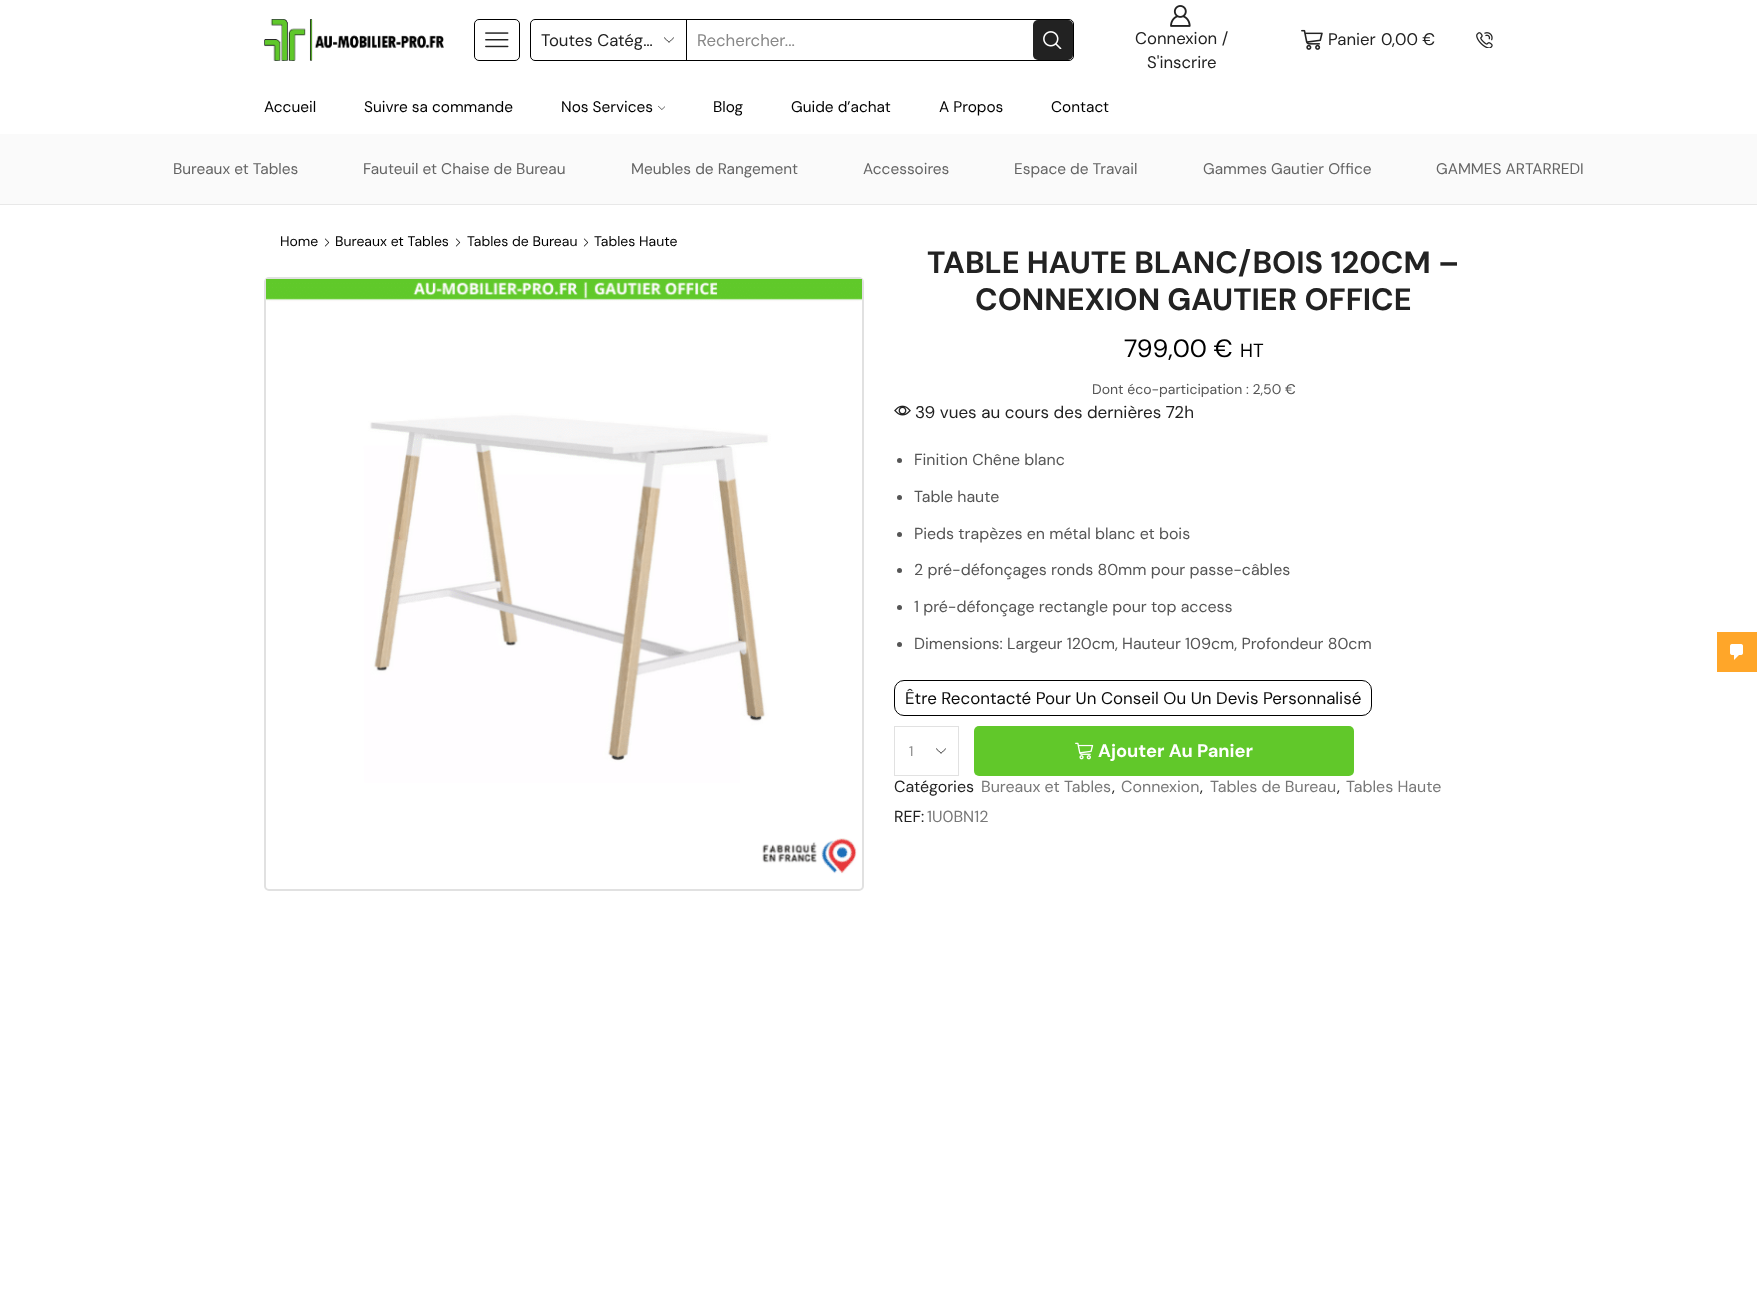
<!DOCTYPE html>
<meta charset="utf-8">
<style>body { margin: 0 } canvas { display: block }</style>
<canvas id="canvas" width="1757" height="1305"></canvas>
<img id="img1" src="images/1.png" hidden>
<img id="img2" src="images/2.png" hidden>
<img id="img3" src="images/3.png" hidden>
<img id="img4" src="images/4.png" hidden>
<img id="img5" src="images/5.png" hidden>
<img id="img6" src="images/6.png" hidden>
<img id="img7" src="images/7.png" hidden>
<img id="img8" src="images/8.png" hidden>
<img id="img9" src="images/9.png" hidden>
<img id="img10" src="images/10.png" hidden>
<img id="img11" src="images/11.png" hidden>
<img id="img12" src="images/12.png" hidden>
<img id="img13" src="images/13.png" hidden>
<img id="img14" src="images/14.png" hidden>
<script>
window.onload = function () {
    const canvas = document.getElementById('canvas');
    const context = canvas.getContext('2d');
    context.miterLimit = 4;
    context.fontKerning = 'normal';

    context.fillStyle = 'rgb(255, 255, 255)';
    context.fillRect(0, 0, 1757, 1305);
    context.drawImage(document.getElementById('img1'), 264, 19, 180, 42);
    context.beginPath();
    context.roundRect(474.5, 19.5, 45, 41, 4.5);
    context.strokeStyle = 'rgb(0, 0, 0)';
    context.stroke();
    context.drawImage(document.getElementById('img2'), 485, 32, 24, 16);
    context.beginPath();
    context.roundRect(530.5, 19.5, 543, 41, 4.5);
    context.stroke();
    context.drawImage(document.getElementById('img3'), 664, 37, 10, 6);
    context.fillStyle = 'rgb(0, 0, 0)';
    context.fillRect(686, 20, 1, 40);
    context.fillStyle = 'rgb(34, 34, 34)';
    context.beginPath();
    context.roundRect(1033, 20, 40, 40, 5);
    context.fill();
    context.drawImage(document.getElementById('img4'), 1043, 31, 19, 18);
    context.drawImage(document.getElementById('img5'), 1170, 5, 21, 22);
    context.drawImage(document.getElementById('img6'), 1301, 29, 22, 21);
    context.drawImage(document.getElementById('img7'), 1476, 32, 17, 16);
    context.drawImage(document.getElementById('img8'), 658, 105, 7, 5);
    context.fillStyle = 'rgb(250, 250, 250)';
    context.fillRect(0, 134, 1757, 70);
    context.fillStyle = 'rgb(232, 232, 232)';
    context.fillRect(0, 204, 1757, 1);
    context.drawImage(document.getElementById('img9'), 324, 238, 6, 9);
    context.drawImage(document.getElementById('img9'), 455, 238, 6, 9);
    context.drawImage(document.getElementById('img9'), 583, 238, 6, 9);
    context.beginPath();
    context.roundRect(265, 278, 598, 612, 4);
    context.strokeStyle = 'rgb(225, 225, 225)';
    context.lineWidth = 2;
    context.stroke();
    context.drawImage(document.getElementById('img10'), 266, 279, 596, 595);
    context.drawImage(document.getElementById('img11'), 894, 405, 17, 11);
    context.fillStyle = 'rgb(85, 85, 85)';
    context.beginPath();
    context.arc(899.5, 460.5, 2.5, 0, 2 * Math.PI);
    context.fill();
    context.beginPath();
    context.arc(899.5, 497.5, 2.5, 0, 2 * Math.PI);
    context.fill();
    context.beginPath();
    context.arc(899.5, 534.5, 2.5, 0, 2 * Math.PI);
    context.fill();
    context.beginPath();
    context.arc(899.5, 570.5, 2.5, 0, 2 * Math.PI);
    context.fill();
    context.beginPath();
    context.arc(899.5, 607.5, 2.5, 0, 2 * Math.PI);
    context.fill();
    context.beginPath();
    context.arc(899.5, 644.5, 2.5, 0, 2 * Math.PI);
    context.fill();
    context.beginPath();
    context.roundRect(894.5, 680.5, 477, 35, 9.5);
    context.strokeStyle = 'rgb(0, 0, 0)';
    context.lineWidth = 1;
    context.stroke();
    context.drawImage(document.getElementById('img12'), 936, 748, 10, 6);
    context.strokeStyle = 'rgb(225, 225, 225)';
    context.strokeRect(894.5, 726.5, 64, 49);
    context.fillStyle = 'rgb(97, 200, 42)';
    context.beginPath();
    context.roundRect(974, 726, 380, 50, 5);
    context.fill();
    context.drawImage(document.getElementById('img13'), 1075, 742, 19, 18);
    context.fillStyle = 'rgb(255, 166, 41)';
    context.fillRect(1717, 632, 40, 40);
    context.drawImage(document.getElementById('img14'), 1730, 644, 13, 16);
    context.font = '16.75px DM Sans';
    context.fillStyle = 'rgb(34, 34, 34)';
    context.fillText('Toutes Catég…', 541, 46);
    context.fillStyle = 'rgb(136, 136, 136)';
    context.fillText('Rechercher...', 697, 46);
    context.fillStyle = 'rgb(34, 34, 34)';
    context.fillText('Connexion /', 1135, 44);
    context.fillText('S\'inscrire', 1147, 68);
    context.fillText('Panier', 1328, 45);
    context.fillText('0,00 €', 1381, 45);
    context.font = '15.4px DM Sans';
    context.fillStyle = 'rgb(0, 0, 0)';
    context.fillText('Accueil', 264, 112);
    context.fillText('Suivre sa commande', 364, 112);
    context.fillText('Nos Services', 561, 112);
    context.fillText('Blog', 713, 112);
    context.fillText('Guide d’achat', 791, 112);
    context.fillText('A Propos', 939, 112);
    context.fillText('Contact', 1051, 112);
    context.fillStyle = 'rgb(100, 100, 100)';
    context.fillText('Bureaux et Tables', 173, 174);
    context.fillText('Fauteuil et Chaise de Bureau', 363, 174);
    context.fillText('Meubles de Rangement', 631, 174);
    context.fillText('Accessoires', 863, 174);
    context.fillText('Espace de Travail', 1014, 174);
    context.fillText('Gammes Gautier Office', 1203, 174);
    context.fillText('GAMMES ARTARREDI', 1436, 174);
    context.font = '14px DM Sans';
    context.fillStyle = 'rgb(0, 0, 0)';
    context.fillText('Home', 280, 246);
    context.fillText('Bureaux et Tables', 335, 246);
    context.fillText('Tables de Bureau', 467, 246);
    context.fillText('Tables Haute', 594, 246);
    context.font = 'bold 30.75px DM Sans';
    context.fillStyle = 'rgb(34, 34, 34)';
    context.fillText('TABLE HAUTE BLANC/BOIS 120CM –', 927, 273);
    context.fillText('CONNEXION GAUTIER OFFICE', 975, 310);
    context.font = '25px DM Sans';
    context.fillStyle = 'rgb(0, 0, 0)';
    context.fillText('799,00 €', 1124, 357);
    context.font = '19px DM Sans';
    context.fillText('HT', 1240, 357);
    context.font = '14px DM Sans';
    context.fillStyle = 'rgb(85, 85, 85)';
    context.fillText('Dont éco-participation : 2,50 €', 1092, 394);
    context.font = '17px DM Sans';
    context.fillStyle = 'rgb(34, 34, 34)';
    context.fillText('39 vues au cours des dernières 72h', 915, 418);
    context.font = '15.95px DM Sans';
    context.fillStyle = 'rgb(85, 85, 85)';
    context.fillText('Finition Chêne blanc', 914, 465);
    context.fillText('Table haute', 914, 502);
    context.fillText('Pieds trapèzes en métal blanc et bois', 914, 539);
    context.fillText('2 pré-défonçages ronds 80mm pour passe-câbles', 914, 575);
    context.fillText('1 pré-défonçage rectangle pour top access', 914, 612);
    context.fillText('Dimensions: Largeur 120cm, Hauteur 109cm, Profondeur 80cm', 914, 649);
    context.font = '16.95px DM Sans';
    context.fillStyle = 'rgb(10, 10, 10)';
    context.fillText('Être Recontacté Pour Un Conseil Ou Un Devis Personnalisé', 905, 704);
    context.font = '14px DM Sans';
    context.fillStyle = 'rgb(136, 136, 136)';
    context.fillText('1', 909, 756);
    context.font = 'bold 18.25px DM Sans';
    context.fillStyle = 'rgb(255, 255, 255)';
    context.fillText('Ajouter Au Panier', 1098, 757);
    context.font = '16px DM Sans';
    context.fillStyle = 'rgb(34, 34, 34)';
    context.fillText('Catégories', 894, 792);
    context.fillStyle = 'rgb(119, 119, 119)';
    context.fillText('Bureaux et Tables', 981, 792);
    context.fillStyle = 'rgb(34, 34, 34)';
    context.fillText(',', 1112, 792);
    context.fillStyle = 'rgb(119, 119, 119)';
    context.fillText('Connexion', 1121, 792);
    context.fillStyle = 'rgb(34, 34, 34)';
    context.fillText(',', 1200, 792);
    context.fillStyle = 'rgb(119, 119, 119)';
    context.fillText('Tables de Bureau', 1210, 792);
    context.fillStyle = 'rgb(34, 34, 34)';
    context.fillText(',', 1337, 792);
    context.fillStyle = 'rgb(119, 119, 119)';
    context.fillText('Tables Haute', 1346, 792);
    context.fillStyle = 'rgb(34, 34, 34)';
    context.fillText('REF:', 894, 822);
    context.fillStyle = 'rgb(119, 119, 119)';
    context.fillText('1U0BN12', 927, 822);
};
</script>
